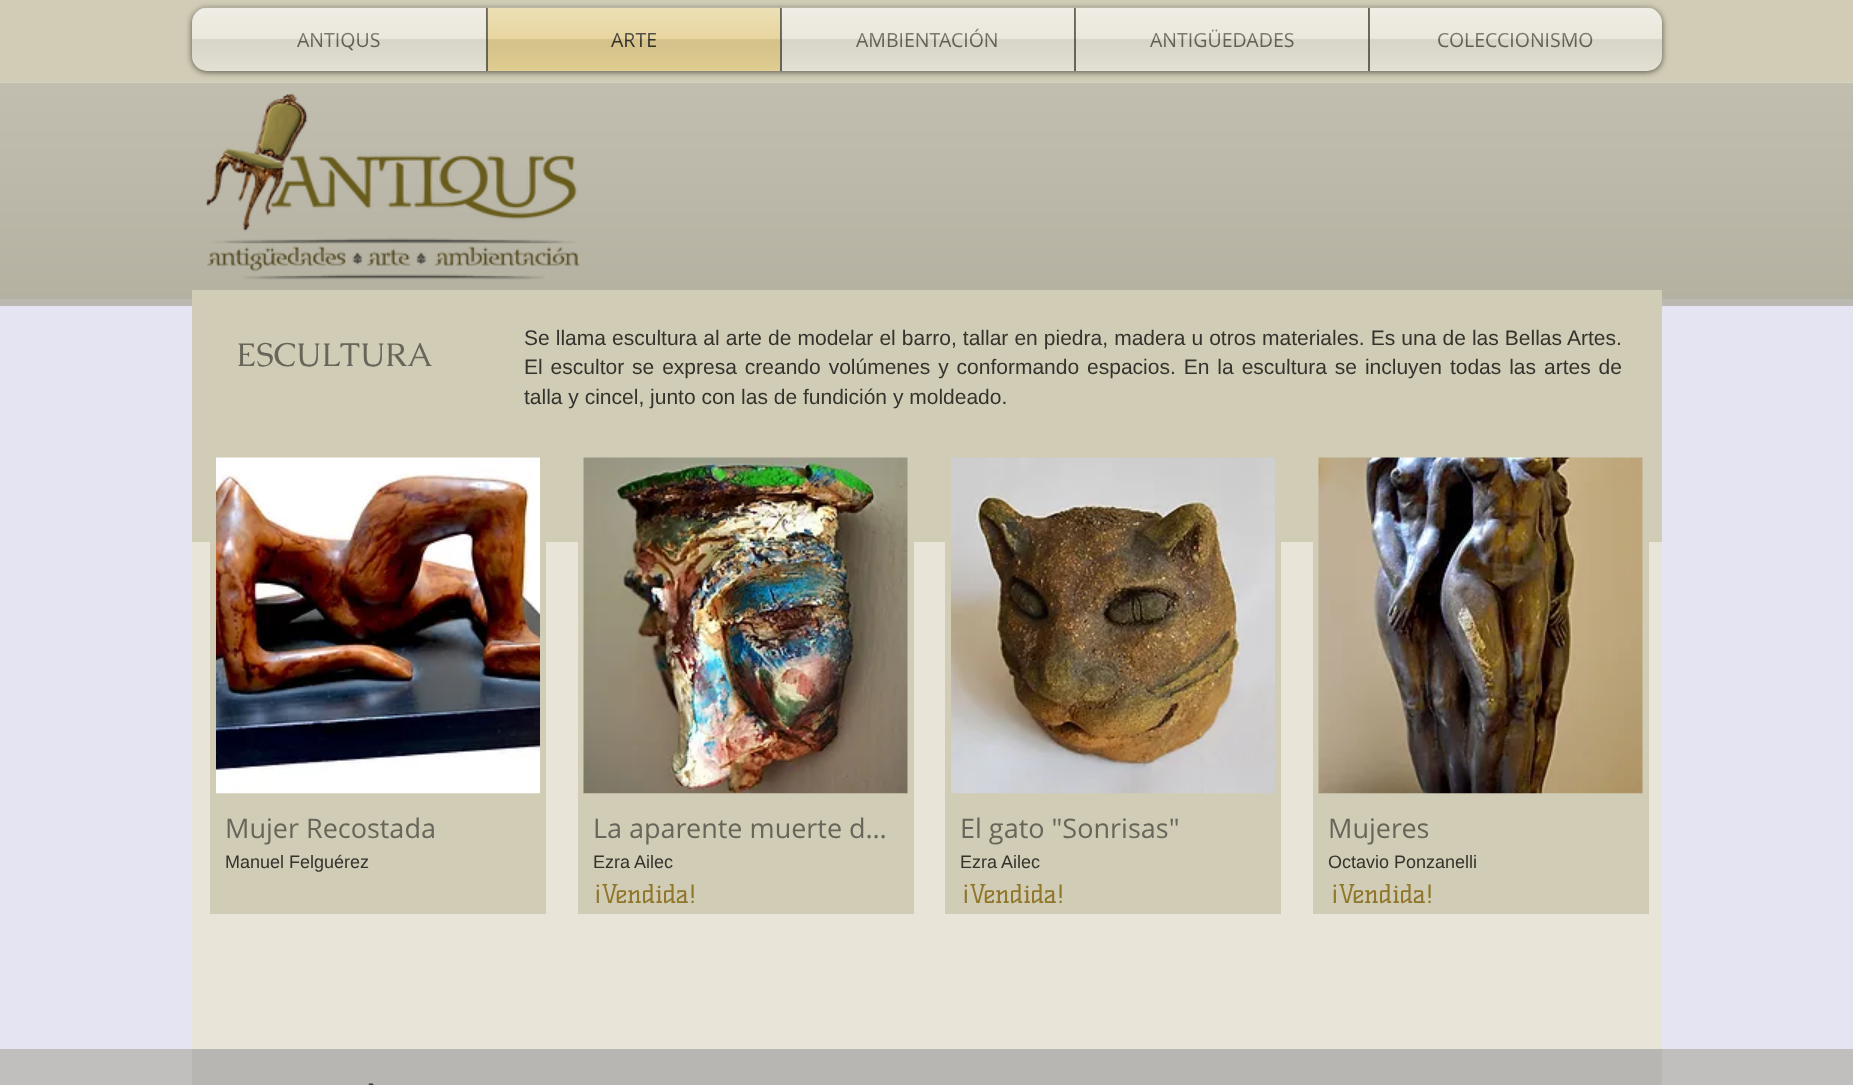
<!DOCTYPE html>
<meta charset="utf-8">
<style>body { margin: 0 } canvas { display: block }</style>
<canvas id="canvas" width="1853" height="1085"></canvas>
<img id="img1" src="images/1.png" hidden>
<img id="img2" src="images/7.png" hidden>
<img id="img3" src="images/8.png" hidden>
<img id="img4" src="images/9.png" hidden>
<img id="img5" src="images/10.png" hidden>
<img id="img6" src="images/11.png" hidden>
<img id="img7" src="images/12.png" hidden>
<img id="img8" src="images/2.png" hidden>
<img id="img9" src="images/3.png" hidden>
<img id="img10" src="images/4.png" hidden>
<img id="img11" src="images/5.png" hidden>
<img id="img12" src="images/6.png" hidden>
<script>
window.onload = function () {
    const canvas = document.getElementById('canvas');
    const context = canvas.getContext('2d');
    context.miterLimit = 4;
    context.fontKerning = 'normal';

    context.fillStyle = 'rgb(228, 228, 243)';
    context.fillRect(0, 0, 1853, 1085);
    context.fillStyle = 'rgb(209, 204, 181)';
    context.fillRect(0, 0, 1853, 83);
    context.fillStyle = 'rgb(172, 168, 150)';
    context.fillRect(0, 83, 1853, 216);
    context.fillStyle = 'rgba(0, 0, 0, 0.6)';
    context.filter = 'blur(3px)';
    context.beginPath();
    context.roundRect(192, 9, 1470, 63, 15);
    context.fill();
    context.filter = 'none';
    context.drawImage(document.getElementById('img1'), 192, 7, 1470, 57);
    context.fillStyle = 'rgb(232, 229, 216)';
    context.beginPath();
    context.roundRect(192, 8, 294, 63, [15, 0, 0, 15]);
    context.fill();
    context.fillStyle = 'rgb(229, 209, 148)';
    context.fillRect(488, 8, 292, 63);
    context.fillStyle = 'rgb(104, 102, 90)';
    context.fillRect(486, 8, 2, 63);
    context.fillStyle = 'rgb(232, 229, 216)';
    context.fillRect(782, 8, 292, 63);
    context.fillStyle = 'rgb(104, 102, 90)';
    context.fillRect(780, 8, 2, 63);
    context.fillStyle = 'rgb(232, 229, 216)';
    context.fillRect(1076, 8, 292, 63);
    context.fillStyle = 'rgb(104, 102, 90)';
    context.fillRect(1074, 8, 2, 63);
    context.fillStyle = 'rgb(232, 229, 216)';
    context.beginPath();
    context.roundRect(1368, 8, 294, 63, [0, 15, 15, 0]);
    context.fill();
    context.fillStyle = 'rgb(104, 102, 90)';
    context.fillRect(1368, 8, 2, 63);
    context.fillStyle = 'rgb(178, 176, 168)';
    context.fillRect(0, 299, 1853, 7);
    context.drawImage(document.getElementById('img2'), 0, 82, 1853, 224);
    context.drawImage(document.getElementById('img3'), 205, 93, 375, 187);
    context.fillStyle = 'rgb(209, 204, 181)';
    context.fillRect(192, 290, 1470, 252);
    context.fillStyle = 'rgb(232, 229, 216)';
    context.fillRect(192, 542, 1470, 507);
    context.fillStyle = 'rgb(209, 204, 181)';
    context.fillRect(210, 542, 336, 372);
    context.drawImage(document.getElementById('img4'), 216, 457, 324, 337);
    context.fillRect(578, 542, 336, 372);
    context.drawImage(document.getElementById('img5'), 583, 457, 325, 337);
    context.fillRect(945, 542, 336, 372);
    context.drawImage(document.getElementById('img6'), 951, 457, 324, 337);
    context.fillRect(1313, 542, 336, 372);
    context.drawImage(document.getElementById('img7'), 1318, 457, 325, 337);
    context.fillStyle = 'rgb(192, 191, 190)';
    context.fillRect(0, 1049, 1853, 36);
    context.fillStyle = 'rgb(184, 182, 178)';
    context.fillRect(192, 1049, 1470, 36);
    context.font = '19.5px Open Sans';
    context.fillStyle = 'rgb(104, 102, 90)';
    context.fillText('ANTIQUS', 297, 47);
    context.drawImage(document.getElementById('img8'), 192, 7, 294, 63);
    context.fillStyle = 'rgb(52, 51, 45)';
    context.fillText('ARTE', 611, 47);
    context.drawImage(document.getElementById('img9'), 487, 7, 293, 63);
    context.fillStyle = 'rgb(104, 102, 90)';
    context.fillText('AMBIENTACIÓN', 856, 47);
    context.drawImage(document.getElementById('img10'), 781, 7, 293, 63);
    context.fillText('ANTIGÜEDADES', 1150, 47);
    context.drawImage(document.getElementById('img11'), 1075, 7, 293, 63);
    context.fillText('COLECCIONISMO', 1437, 47);
    context.drawImage(document.getElementById('img12'), 1369, 7, 293, 63);
    context.font = '33px Caudex';
    context.fillText('ESCULTURA', 236, 366);
    context.wordSpacing = '0.25px';
    context.font = '21px Liberation Sans';
    context.fillStyle = 'rgb(52, 51, 45)';
    context.fillText('Se llama escultura al arte de modelar el barro, tallar en piedra, madera u otros materiales. Es una de las Bellas Artes.', 524, 345);
    context.wordSpacing = '2.1px';
    context.fillText('El escultor se expresa creando volúmenes y conformando espacios. En la escultura se incluyen todas las artes de', 524, 374);
    context.wordSpacing = '0px';
    context.fillText('talla y cincel, junto con las de fundición y moldeado.', 524, 404);
    context.font = '27px Open Sans';
    context.fillStyle = 'rgb(104, 102, 90)';
    context.fillText('Mujer Recostada', 225, 838);
    context.font = '18px Liberation Sans';
    context.fillStyle = 'rgb(52, 51, 45)';
    context.fillText('Manuel Felguérez', 225, 868);
    context.font = '27px Open Sans';
    context.fillStyle = 'rgb(104, 102, 90)';
    context.fillText('La aparente muerte d…', 593, 838);
    context.font = '18px Liberation Sans';
    context.fillStyle = 'rgb(52, 51, 45)';
    context.fillText('Ezra Ailec', 593, 868);
    context.font = '27px Open Sans';
    context.fillStyle = 'rgb(104, 102, 90)';
    context.fillText('El gato "Sonrisas"', 960, 838);
    context.font = '18px Liberation Sans';
    context.fillStyle = 'rgb(52, 51, 45)';
    context.fillText('Ezra Ailec', 960, 868);
    context.font = '27px Open Sans';
    context.fillStyle = 'rgb(104, 102, 90)';
    context.fillText('Mujeres', 1328, 838);
    context.font = '18px Liberation Sans';
    context.fillStyle = 'rgb(52, 51, 45)';
    context.fillText('Octavio Ponzanelli', 1328, 868);
    context.font = '25.5px Kelly Slab';
    context.fillStyle = 'rgb(144, 118, 41)';
    context.fillText('¡Vendida!', 594, 903);
    context.fillText('¡Vendida!', 962, 903);
    context.fillText('¡Vendida!', 1331, 903);
    context.font = '18px Liberation Sans';
    context.fillStyle = 'rgb(52, 51, 45)';
    context.fillText('-', 368, 1089);
};
</script>
